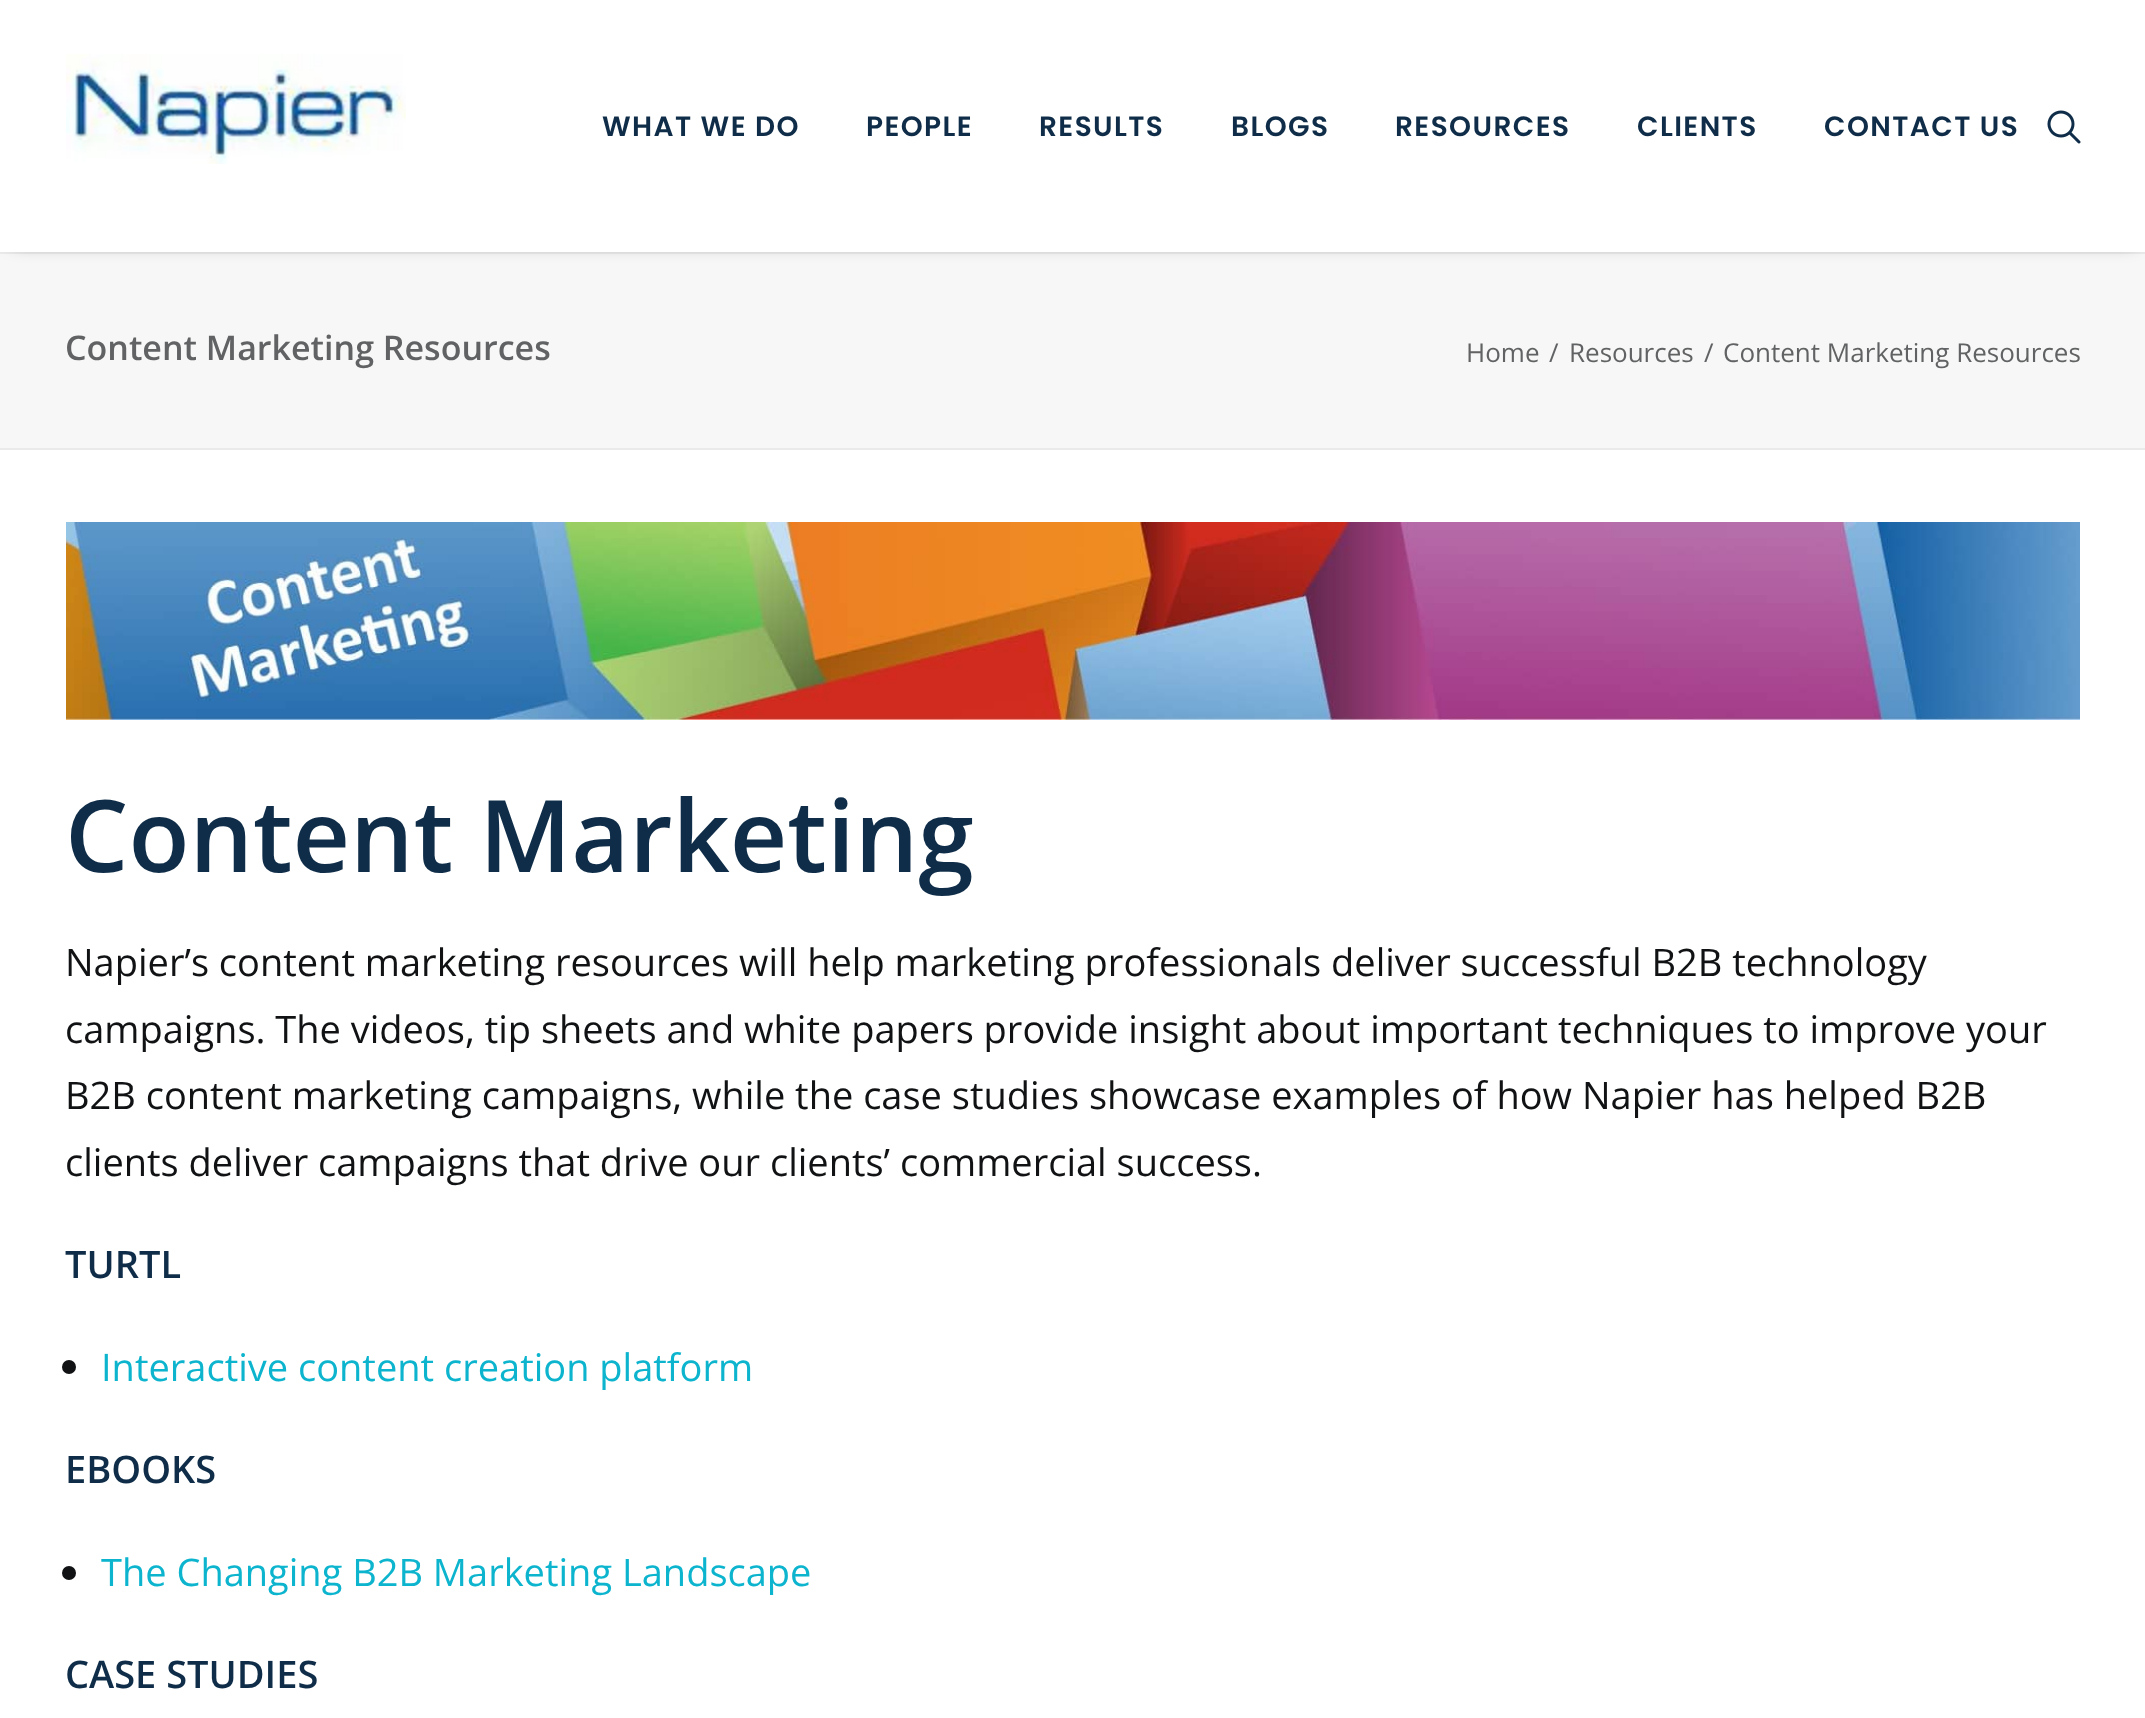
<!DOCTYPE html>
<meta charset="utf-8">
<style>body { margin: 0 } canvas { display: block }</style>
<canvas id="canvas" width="2145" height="1718"></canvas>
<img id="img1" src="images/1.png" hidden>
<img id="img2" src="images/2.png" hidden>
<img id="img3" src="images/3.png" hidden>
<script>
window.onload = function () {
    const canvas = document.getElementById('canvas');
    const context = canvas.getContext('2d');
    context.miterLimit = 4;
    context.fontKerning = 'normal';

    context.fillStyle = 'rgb(247, 247, 247)';
    context.fillRect(0, 0, 2145, 1718);
    context.fillStyle = 'rgb(234, 234, 234)';
    context.fillRect(0, 252, 2145, 2);
    context.fillStyle = 'rgba(0, 0, 0, 0.6)';
    context.filter = 'blur(10px)';
    context.beginPath();
    context.rect(14, 28, 2120, 212);
    context.fill();
    context.filter = 'none';
    context.fillStyle = 'rgb(255, 255, 255)';
    context.fillRect(0, 0, 2145, 252);
    context.drawImage(document.getElementById('img1'), 66, 54, 340, 110);
    context.drawImage(document.getElementById('img2'), 2047, 110, 34, 34);
    context.fillStyle = 'rgb(234, 234, 234)';
    context.fillRect(0, 448, 2145, 2);
    context.fillStyle = 'rgb(255, 255, 255)';
    context.fillRect(0, 450, 2145, 1268);
    context.drawImage(document.getElementById('img3'), 66, 522, 2014, 198);
    context.fillStyle = 'rgb(16, 18, 19)';
    context.beginPath();
    context.arc(69, 1367, 7, 0, 2 * Math.PI);
    context.fill();
    context.beginPath();
    context.arc(69, 1573, 7, 0, 2 * Math.PI);
    context.fill();
    context.letterSpacing = '1.4px';
    context.font = '600 28px Poppins';
    context.fillStyle = 'rgb(15, 45, 72)';
    context.fillText('WHAT WE DO', 602, 136);
    context.fillText('PEOPLE', 866, 136);
    context.fillText('RESULTS', 1039, 136);
    context.fillText('BLOGS', 1231, 136);
    context.fillText('RESOURCES', 1395, 136);
    context.fillText('CLIENTS', 1637, 136);
    context.fillText('CONTACT US', 1824, 136);
    context.letterSpacing = '0px';
    context.font = '600 34px Open Sans';
    context.fillStyle = 'rgb(97, 98, 99)';
    context.fillText('Content Marketing Resources', 65, 360);
    context.font = '26px Open Sans';
    context.fillText('Home', 1466, 362);
    context.fillText('/', 1549, 362);
    context.fillText('Resources', 1569, 362);
    context.fillText('/', 1704, 362);
    context.fillText('Content Marketing Resources', 1723, 362);
    context.font = '600 100px Open Sans';
    context.fillStyle = 'rgb(15, 45, 72)';
    context.fillText('Content Marketing', 65, 872);
    context.font = '38px Open Sans';
    context.fillStyle = 'rgb(16, 18, 19)';
    context.fillText('Napier’s content marketing resources will help marketing professionals deliver successful B2B technology', 65, 976);
    context.fillText('campaigns. The videos, tip sheets and white papers provide insight about important techniques to improve your', 65, 1043);
    context.fillText('B2B content marketing campaigns, while the case studies showcase examples of how Napier has helped B2B', 65, 1109);
    context.fillText('clients deliver campaigns that drive our clients’ commercial success.', 65, 1176);
    context.font = '600 38px Open Sans';
    context.fillStyle = 'rgb(15, 45, 72)';
    context.fillText('TURTL', 65, 1278);
    context.font = '38px Open Sans';
    context.fillStyle = 'rgb(12, 180, 206)';
    context.fillText('Interactive content creation platform', 101, 1381);
    context.font = '600 38px Open Sans';
    context.fillStyle = 'rgb(15, 45, 72)';
    context.fillText('EBOOKS', 65, 1483);
    context.font = '38px Open Sans';
    context.fillStyle = 'rgb(12, 180, 206)';
    context.fillText('The Changing B2B Marketing Landscape', 101, 1586);
    context.font = '600 38px Open Sans';
    context.fillStyle = 'rgb(15, 45, 72)';
    context.fillText('CASE STUDIES', 65, 1688);
};
</script>
